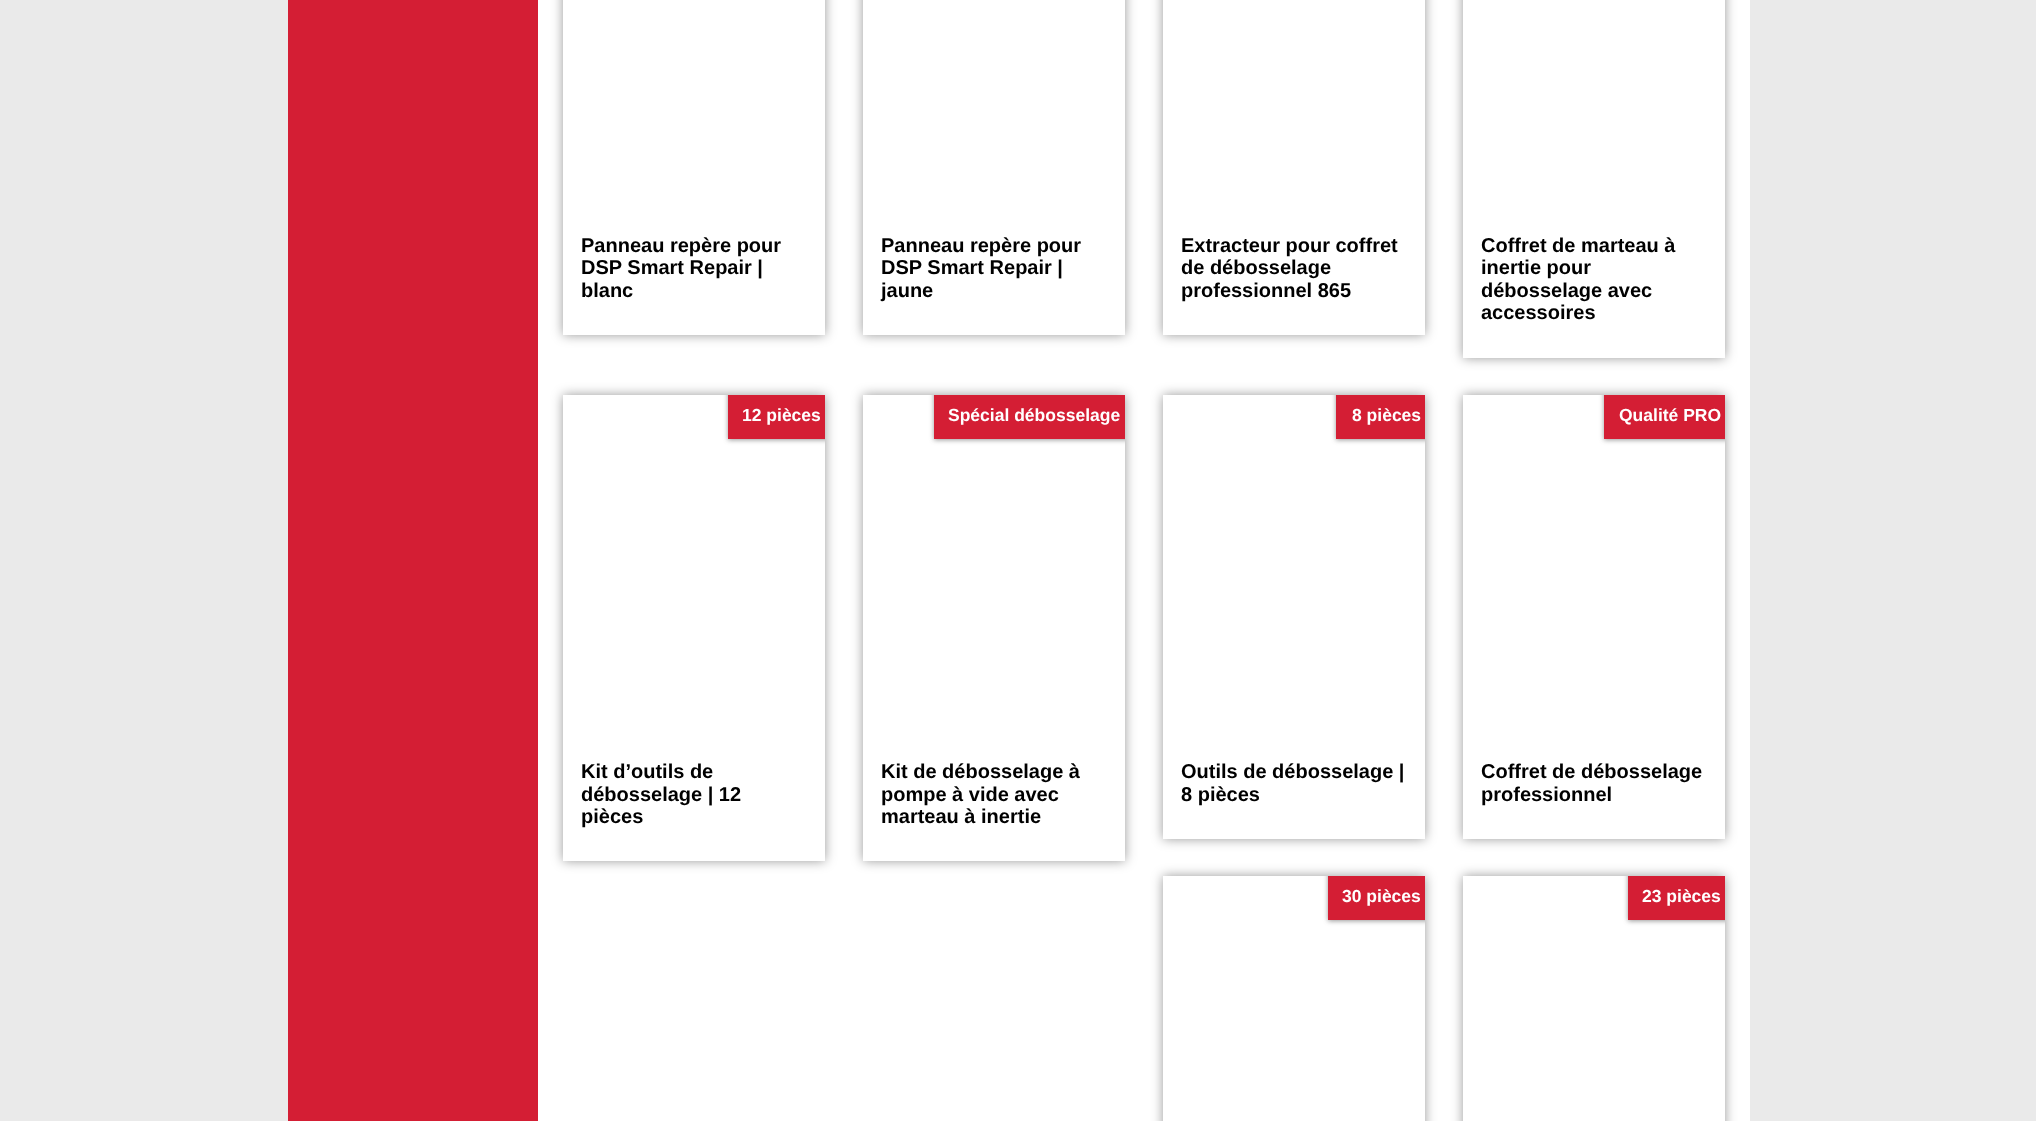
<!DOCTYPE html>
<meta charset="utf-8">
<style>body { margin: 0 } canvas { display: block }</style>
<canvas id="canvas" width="2036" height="1121"></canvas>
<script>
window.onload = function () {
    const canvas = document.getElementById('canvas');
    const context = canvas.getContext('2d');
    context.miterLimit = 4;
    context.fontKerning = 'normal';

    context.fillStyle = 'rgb(234, 234, 234)';
    context.fillRect(0, 0, 2036, 1121);
    context.fillStyle = 'rgb(212, 30, 52)';
    context.fillRect(288, 0, 250, 1121);
    context.fillStyle = 'rgb(255, 255, 255)';
    context.fillRect(538, 0, 1212, 1121);
    context.save();
    context.beginPath();
    context.moveTo(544, 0);
    context.lineTo(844, 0);
    context.lineTo(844, 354);
    context.lineTo(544, 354);
    context.closePath();
    context.moveTo(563, -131);
    context.lineTo(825, -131);
    context.lineTo(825, 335);
    context.lineTo(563, 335);
    context.closePath();
    context.clip('evenodd');
    context.fillStyle = 'rgba(0, 0, 0, 0.4)';
    context.filter = 'blur(6px)';
    context.beginPath();
    context.rect(563, -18, 262, 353);
    context.fill();
    context.filter = 'none';
    context.restore();
    context.save();
    context.beginPath();
    context.moveTo(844, 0);
    context.lineTo(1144, 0);
    context.lineTo(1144, 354);
    context.lineTo(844, 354);
    context.closePath();
    context.moveTo(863, -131);
    context.lineTo(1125, -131);
    context.lineTo(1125, 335);
    context.lineTo(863, 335);
    context.closePath();
    context.clip('evenodd');
    context.fillStyle = 'rgba(0, 0, 0, 0.4)';
    context.filter = 'blur(6px)';
    context.beginPath();
    context.rect(863, -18, 262, 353);
    context.fill();
    context.filter = 'none';
    context.restore();
    context.save();
    context.beginPath();
    context.moveTo(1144, 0);
    context.lineTo(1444, 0);
    context.lineTo(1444, 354);
    context.lineTo(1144, 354);
    context.closePath();
    context.moveTo(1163, -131);
    context.lineTo(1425, -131);
    context.lineTo(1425, 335);
    context.lineTo(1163, 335);
    context.closePath();
    context.clip('evenodd');
    context.fillStyle = 'rgba(0, 0, 0, 0.4)';
    context.filter = 'blur(6px)';
    context.beginPath();
    context.rect(1163, -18, 262, 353);
    context.fill();
    context.filter = 'none';
    context.restore();
    context.save();
    context.beginPath();
    context.moveTo(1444, 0);
    context.lineTo(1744, 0);
    context.lineTo(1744, 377);
    context.lineTo(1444, 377);
    context.closePath();
    context.moveTo(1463, -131);
    context.lineTo(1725, -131);
    context.lineTo(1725, 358);
    context.lineTo(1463, 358);
    context.closePath();
    context.clip('evenodd');
    context.fillStyle = 'rgba(0, 0, 0, 0.4)';
    context.filter = 'blur(6px)';
    context.beginPath();
    context.rect(1463, -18, 262, 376);
    context.fill();
    context.filter = 'none';
    context.restore();
    context.save();
    context.beginPath();
    context.moveTo(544, 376);
    context.lineTo(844, 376);
    context.lineTo(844, 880);
    context.lineTo(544, 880);
    context.closePath();
    context.moveTo(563, 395);
    context.lineTo(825, 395);
    context.lineTo(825, 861);
    context.lineTo(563, 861);
    context.closePath();
    context.clip('evenodd');
    context.fillStyle = 'rgba(0, 0, 0, 0.4)';
    context.filter = 'blur(6px)';
    context.beginPath();
    context.rect(563, 395, 262, 466);
    context.fill();
    context.filter = 'none';
    context.restore();
    context.save();
    context.beginPath();
    context.rect(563, 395, 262, 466);
    context.clip();
    context.fillStyle = 'rgba(50, 50, 50, 0.5)';
    context.filter = 'blur(2.5px)';
    context.beginPath();
    context.rect(728, 390, 103, 50);
    context.fill();
    context.filter = 'none';
    context.restore();
    context.fillStyle = 'rgb(212, 30, 52)';
    context.fillRect(728, 395, 97, 44);
    context.save();
    context.beginPath();
    context.moveTo(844, 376);
    context.lineTo(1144, 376);
    context.lineTo(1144, 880);
    context.lineTo(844, 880);
    context.closePath();
    context.moveTo(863, 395);
    context.lineTo(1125, 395);
    context.lineTo(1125, 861);
    context.lineTo(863, 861);
    context.closePath();
    context.clip('evenodd');
    context.fillStyle = 'rgba(0, 0, 0, 0.4)';
    context.filter = 'blur(6px)';
    context.beginPath();
    context.rect(863, 395, 262, 466);
    context.fill();
    context.filter = 'none';
    context.restore();
    context.save();
    context.beginPath();
    context.rect(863, 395, 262, 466);
    context.clip();
    context.fillStyle = 'rgba(50, 50, 50, 0.5)';
    context.filter = 'blur(2.5px)';
    context.beginPath();
    context.rect(934, 390, 197, 50);
    context.fill();
    context.filter = 'none';
    context.restore();
    context.fillRect(934, 395, 191, 44);
    context.save();
    context.beginPath();
    context.moveTo(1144, 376);
    context.lineTo(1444, 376);
    context.lineTo(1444, 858);
    context.lineTo(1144, 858);
    context.closePath();
    context.moveTo(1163, 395);
    context.lineTo(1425, 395);
    context.lineTo(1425, 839);
    context.lineTo(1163, 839);
    context.closePath();
    context.clip('evenodd');
    context.fillStyle = 'rgba(0, 0, 0, 0.4)';
    context.filter = 'blur(6px)';
    context.beginPath();
    context.rect(1163, 395, 262, 444);
    context.fill();
    context.filter = 'none';
    context.restore();
    context.save();
    context.beginPath();
    context.rect(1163, 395, 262, 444);
    context.clip();
    context.fillStyle = 'rgba(50, 50, 50, 0.5)';
    context.filter = 'blur(2.5px)';
    context.beginPath();
    context.rect(1336, 390, 95, 50);
    context.fill();
    context.filter = 'none';
    context.restore();
    context.fillRect(1336, 395, 89, 44);
    context.save();
    context.beginPath();
    context.moveTo(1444, 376);
    context.lineTo(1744, 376);
    context.lineTo(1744, 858);
    context.lineTo(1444, 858);
    context.closePath();
    context.moveTo(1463, 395);
    context.lineTo(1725, 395);
    context.lineTo(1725, 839);
    context.lineTo(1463, 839);
    context.closePath();
    context.clip('evenodd');
    context.fillStyle = 'rgba(0, 0, 0, 0.4)';
    context.filter = 'blur(6px)';
    context.beginPath();
    context.rect(1463, 395, 262, 444);
    context.fill();
    context.filter = 'none';
    context.restore();
    context.save();
    context.beginPath();
    context.rect(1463, 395, 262, 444);
    context.clip();
    context.fillStyle = 'rgba(50, 50, 50, 0.5)';
    context.filter = 'blur(2.5px)';
    context.beginPath();
    context.rect(1604, 390, 127, 50);
    context.fill();
    context.filter = 'none';
    context.restore();
    context.fillRect(1604, 395, 121, 44);
    context.save();
    context.beginPath();
    context.moveTo(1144, 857);
    context.lineTo(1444, 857);
    context.lineTo(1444, 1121);
    context.lineTo(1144, 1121);
    context.closePath();
    context.moveTo(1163, 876);
    context.lineTo(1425, 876);
    context.lineTo(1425, 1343);
    context.lineTo(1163, 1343);
    context.closePath();
    context.clip('evenodd');
    context.fillStyle = 'rgba(0, 0, 0, 0.4)';
    context.filter = 'blur(6px)';
    context.beginPath();
    context.rect(1163, 876, 262, 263);
    context.fill();
    context.filter = 'none';
    context.restore();
    context.save();
    context.beginPath();
    context.rect(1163, 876, 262, 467);
    context.clip();
    context.fillStyle = 'rgba(50, 50, 50, 0.5)';
    context.filter = 'blur(2.5px)';
    context.beginPath();
    context.rect(1328, 871, 103, 50);
    context.fill();
    context.filter = 'none';
    context.restore();
    context.fillRect(1328, 876, 97, 44);
    context.save();
    context.beginPath();
    context.moveTo(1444, 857);
    context.lineTo(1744, 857);
    context.lineTo(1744, 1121);
    context.lineTo(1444, 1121);
    context.closePath();
    context.moveTo(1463, 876);
    context.lineTo(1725, 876);
    context.lineTo(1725, 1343);
    context.lineTo(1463, 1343);
    context.closePath();
    context.clip('evenodd');
    context.fillStyle = 'rgba(0, 0, 0, 0.4)';
    context.filter = 'blur(6px)';
    context.beginPath();
    context.rect(1463, 876, 262, 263);
    context.fill();
    context.filter = 'none';
    context.restore();
    context.save();
    context.beginPath();
    context.rect(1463, 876, 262, 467);
    context.clip();
    context.fillStyle = 'rgba(50, 50, 50, 0.5)';
    context.filter = 'blur(2.5px)';
    context.beginPath();
    context.rect(1628, 871, 103, 50);
    context.fill();
    context.filter = 'none';
    context.restore();
    context.fillRect(1628, 876, 97, 44);
    context.font = 'bold 20px Liberation Sans';
    context.fillStyle = 'rgb(0, 0, 0)';
    context.fillText('Panneau repère pour', 581, 252);
    context.fillText('DSP Smart Repair |', 581, 274);
    context.fillText('blanc', 581, 297);
    context.fillText('Panneau repère pour', 881, 252);
    context.fillText('DSP Smart Repair |', 881, 274);
    context.fillText('jaune', 881, 297);
    context.fillText('Extracteur pour coffret', 1181, 252);
    context.fillText('de débosselage', 1181, 274);
    context.fillText('professionnel 865', 1181, 297);
    context.fillText('Coffret de marteau à', 1481, 252);
    context.fillText('inertie pour', 1481, 274);
    context.fillText('débosselage avec', 1481, 297);
    context.fillText('accessoires', 1481, 319);
    context.font = 'bold 17.5px Liberation Sans';
    context.fillStyle = 'rgb(255, 255, 255)';
    context.fillText('12 pièces', 742, 421);
    context.font = 'bold 20px Liberation Sans';
    context.fillStyle = 'rgb(0, 0, 0)';
    context.fillText('Kit d’outils de', 581, 778);
    context.fillText('débosselage | 12', 581, 801);
    context.fillText('pièces', 581, 823);
    context.font = 'bold 17.5px Liberation Sans';
    context.fillStyle = 'rgb(255, 255, 255)';
    context.fillText('Spécial débosselage', 948, 421);
    context.font = 'bold 20px Liberation Sans';
    context.fillStyle = 'rgb(0, 0, 0)';
    context.fillText('Kit de débosselage à', 881, 778);
    context.fillText('pompe à vide avec', 881, 801);
    context.fillText('marteau à inertie', 881, 823);
    context.font = 'bold 17.5px Liberation Sans';
    context.fillStyle = 'rgb(255, 255, 255)';
    context.fillText('8 pièces', 1352, 421);
    context.font = 'bold 20px Liberation Sans';
    context.fillStyle = 'rgb(0, 0, 0)';
    context.fillText('Outils de débosselage |', 1181, 778);
    context.fillText('8 pièces', 1181, 801);
    context.font = 'bold 17.5px Liberation Sans';
    context.fillStyle = 'rgb(255, 255, 255)';
    context.fillText('Qualité PRO', 1619, 421);
    context.font = 'bold 20px Liberation Sans';
    context.fillStyle = 'rgb(0, 0, 0)';
    context.fillText('Coffret de débosselage', 1481, 778);
    context.fillText('professionnel', 1481, 801);
    context.font = 'bold 17.5px Liberation Sans';
    context.fillStyle = 'rgb(255, 255, 255)';
    context.fillText('30 pièces', 1342, 902);
    context.fillText('23 pièces', 1642, 902);
};
</script>
